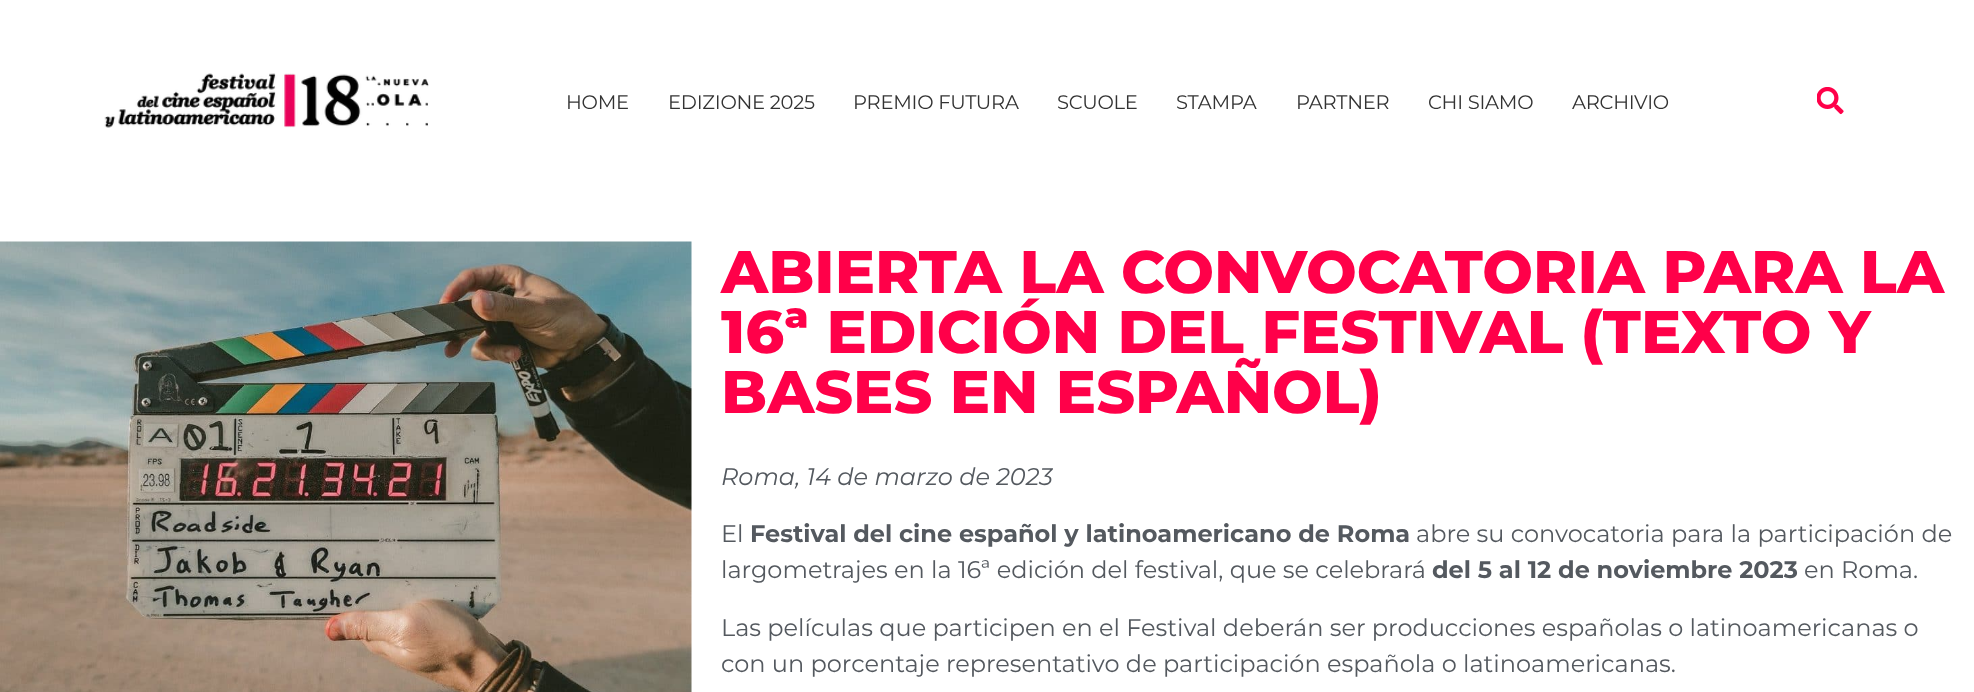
<!DOCTYPE html>
<meta charset="utf-8">
<style>body { margin: 0 } canvas { display: block }</style>
<canvas id="canvas" width="1974" height="692"></canvas>
<img id="img1" src="images/1.png" hidden>
<img id="img2" src="images/2.png" hidden>
<img id="img3" src="images/3.png" hidden>
<script>
window.onload = function () {
    const canvas = document.getElementById('canvas');
    const context = canvas.getContext('2d');
    context.miterLimit = 4;
    context.fontKerning = 'normal';

    context.fillStyle = 'rgb(255, 255, 255)';
    context.fillRect(0, 0, 1974, 692);
    context.drawImage(document.getElementById('img1'), 104, 73, 325, 55);
    context.drawImage(document.getElementById('img2'), 1817, 87, 27, 28);
    context.drawImage(document.getElementById('img3'), 0, 241, 692, 451);
    context.letterSpacing = '-0.25px';
    context.font = '19.5px Montserrat';
    context.fillStyle = 'rgb(51, 51, 51)';
    context.fillText('HOME', 566, 109);
    context.fillText('EDIZIONE 2025', 668, 109);
    context.fillText('PREMIO FUTURA', 853, 109);
    context.fillText('SCUOLE', 1057, 109);
    context.fillText('STAMPA', 1176, 109);
    context.fillText('PARTNER', 1296, 109);
    context.fillText('CHI SIAMO', 1428, 109);
    context.fillText('ARCHIVIO', 1572, 109);
    context.letterSpacing = '0px';
    context.font = '800 60px Montserrat';
    context.fillStyle = 'rgb(255, 0, 73)';
    context.fillText('ABIERTA LA CONVOCATORIA PARA LA', 721, 293);
    context.fillText('16ª EDICIÓN DEL FESTIVAL (TEXTO Y', 721, 353);
    context.fillText('BASES EN ESPAÑOL)', 721, 413);
    context.font = 'italic 24px Montserrat';
    context.fillStyle = 'rgb(84, 89, 95)';
    context.fillText('Roma, 14 de marzo de 2023', 721, 485);
    context.font = '24px Montserrat';
    context.fillText('El', 721, 542);
    context.font = 'bold 24px Montserrat';
    context.fillText('Festival del cine español y latinoamericano de Roma', 750, 542);
    context.font = '24px Montserrat';
    context.fillText('abre su convocatoria para la participación de', 1416, 542);
    context.fillText('largometrajes en la 16ª edición del festival, que se celebrará', 721, 578);
    context.font = 'bold 24px Montserrat';
    context.fillText('del 5 al 12 de noviembre 2023', 1432, 578);
    context.font = '24px Montserrat';
    context.fillText('en Roma.', 1804, 578);
    context.fillText('Las películas que participen en el Festival deberán ser producciones españolas o latinoamericanas o', 721, 636);
    context.fillText('con un porcentaje representativo de participación española o latinoamericanas.', 721, 672);
};
</script>
